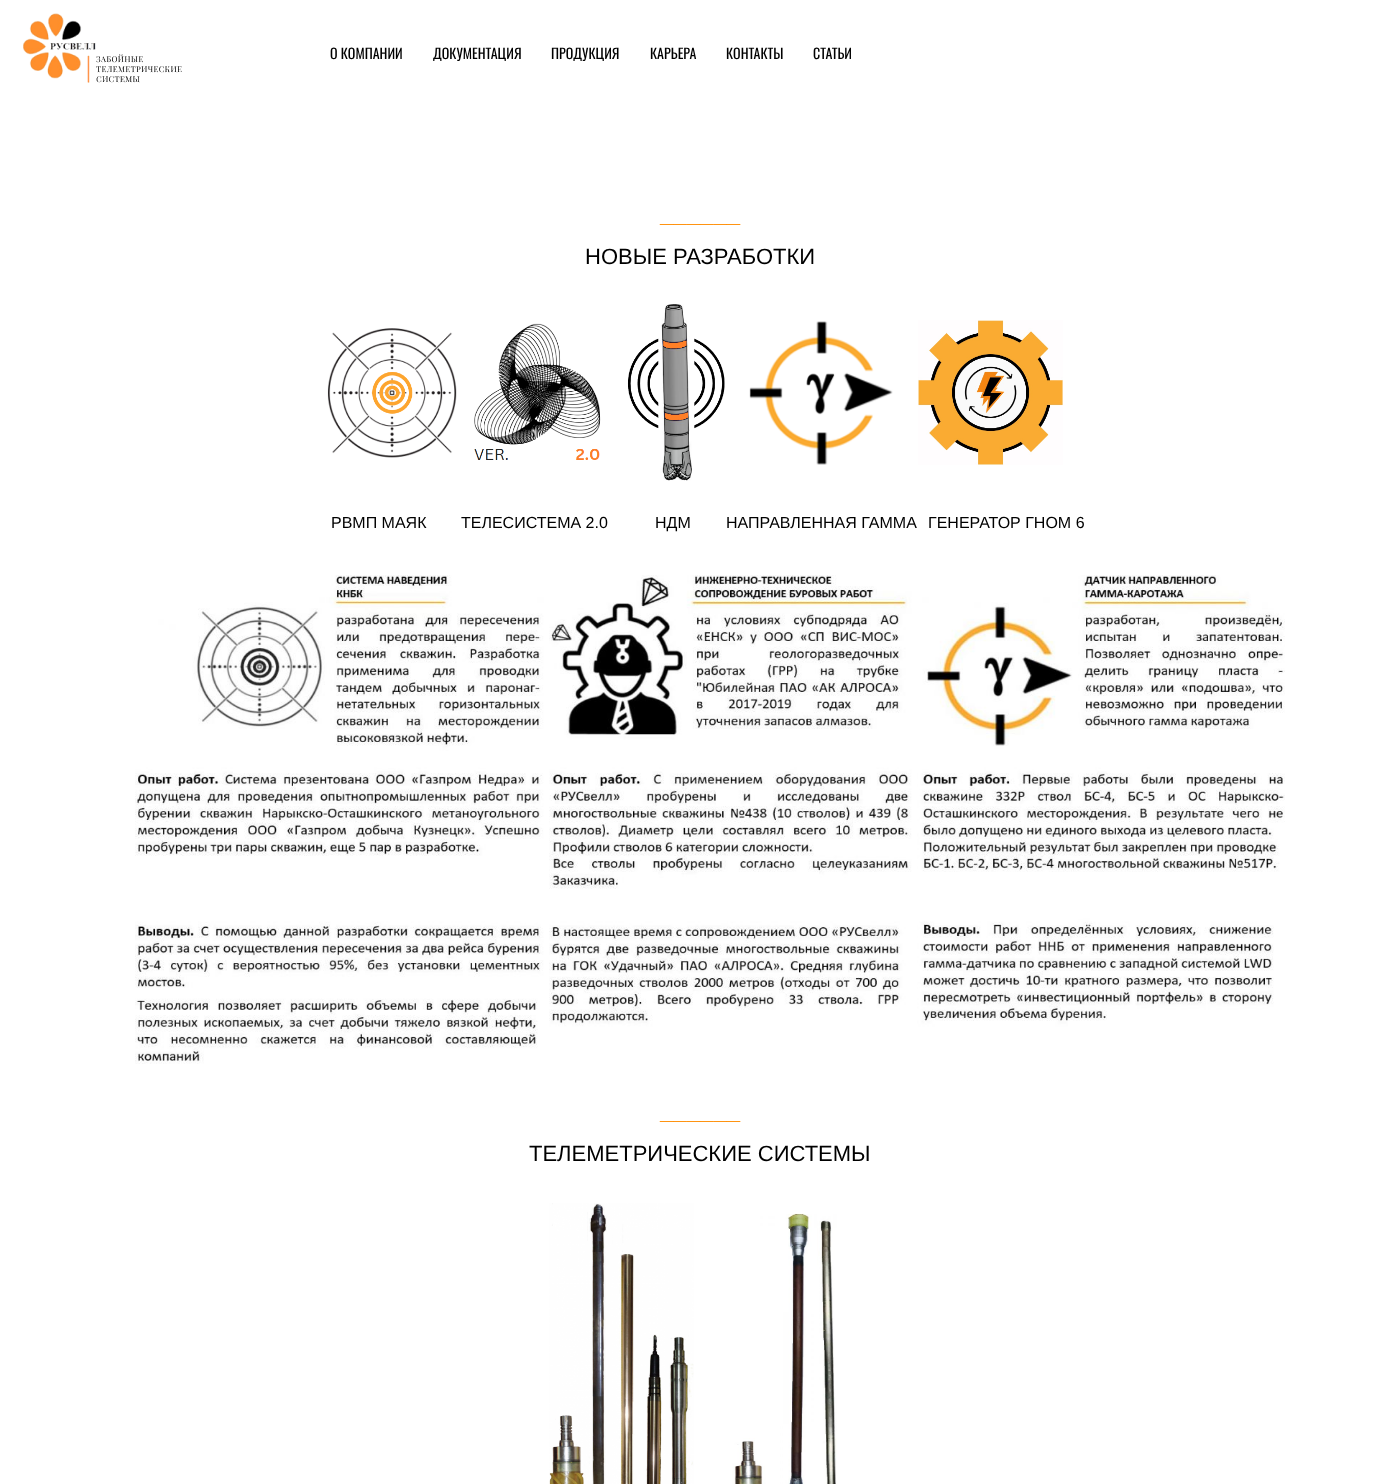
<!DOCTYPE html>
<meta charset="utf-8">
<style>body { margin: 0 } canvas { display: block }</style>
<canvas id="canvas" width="1400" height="1484"></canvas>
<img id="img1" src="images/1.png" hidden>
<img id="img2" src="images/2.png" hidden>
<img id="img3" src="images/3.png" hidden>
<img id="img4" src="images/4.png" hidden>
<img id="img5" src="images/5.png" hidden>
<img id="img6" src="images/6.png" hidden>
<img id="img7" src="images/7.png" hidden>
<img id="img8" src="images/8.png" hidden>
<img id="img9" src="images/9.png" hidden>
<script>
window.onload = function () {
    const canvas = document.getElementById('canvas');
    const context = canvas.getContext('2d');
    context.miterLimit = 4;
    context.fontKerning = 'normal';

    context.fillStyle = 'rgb(255, 255, 255)';
    context.fillRect(0, 0, 1400, 1484);
    context.drawImage(document.getElementById('img1'), 23, 13, 159, 70);
    context.drawImage(document.getElementById('img2'), 327, 328, 130, 130);
    context.drawImage(document.getElementById('img3'), 474, 323, 127, 137);
    context.drawImage(document.getElementById('img4'), 627, 304, 98, 177);
    context.drawImage(document.getElementById('img5'), 749, 321, 144, 144);
    context.drawImage(document.getElementById('img6'), 918, 320, 145, 145);
    context.drawImage(document.getElementById('img7'), 135, 575, 1150, 489);
    context.drawImage(document.getElementById('img8'), 549, 1203, 145, 281);
    context.drawImage(document.getElementById('img9'), 732, 1213, 105, 271);
    context.font = '14px Oswald';
    context.fillStyle = 'rgb(0, 0, 0)';
    context.fillText('О КОМПАНИИ', 330, 59);
    context.fillText('ДОКУМЕНТАЦИЯ', 433, 59);
    context.fillText('ПРОДУКЦИЯ', 551, 59);
    context.fillText('КАРЬЕРА', 650, 59);
    context.fillText('КОНТАКТЫ', 726, 59);
    context.fillText('СТАТЬИ', 813, 59);
    context.font = 'bold 24px Liberation Sans';
    context.fillStyle = 'rgb(255, 140, 0)';
    context.fillText('______', 660, 222);
    context.font = '22px Liberation Sans';
    context.fillStyle = 'rgb(0, 0, 0)';
    context.fillText('НОВЫЕ РАЗРАБОТКИ', 585, 264);
    context.font = '16px Liberation Sans';
    context.fillText('РВМП МАЯК', 331, 528);
    context.fillText('ТЕЛЕСИСТЕМА 2.0', 461, 528);
    context.fillText('НДМ', 655, 528);
    context.fillText('НАПРАВЛЕННАЯ ГАММА', 726, 528);
    context.fillText('ГЕНЕРАТОР ГНОМ 6', 928, 528);
    context.font = 'bold 24px Liberation Sans';
    context.fillStyle = 'rgb(255, 140, 0)';
    context.fillText('______', 660, 1119);
    context.font = '22px Liberation Sans';
    context.fillStyle = 'rgb(0, 0, 0)';
    context.fillText('ТЕЛЕМЕТРИЧЕСКИЕ СИСТЕМЫ', 529, 1161);
};
</script>
